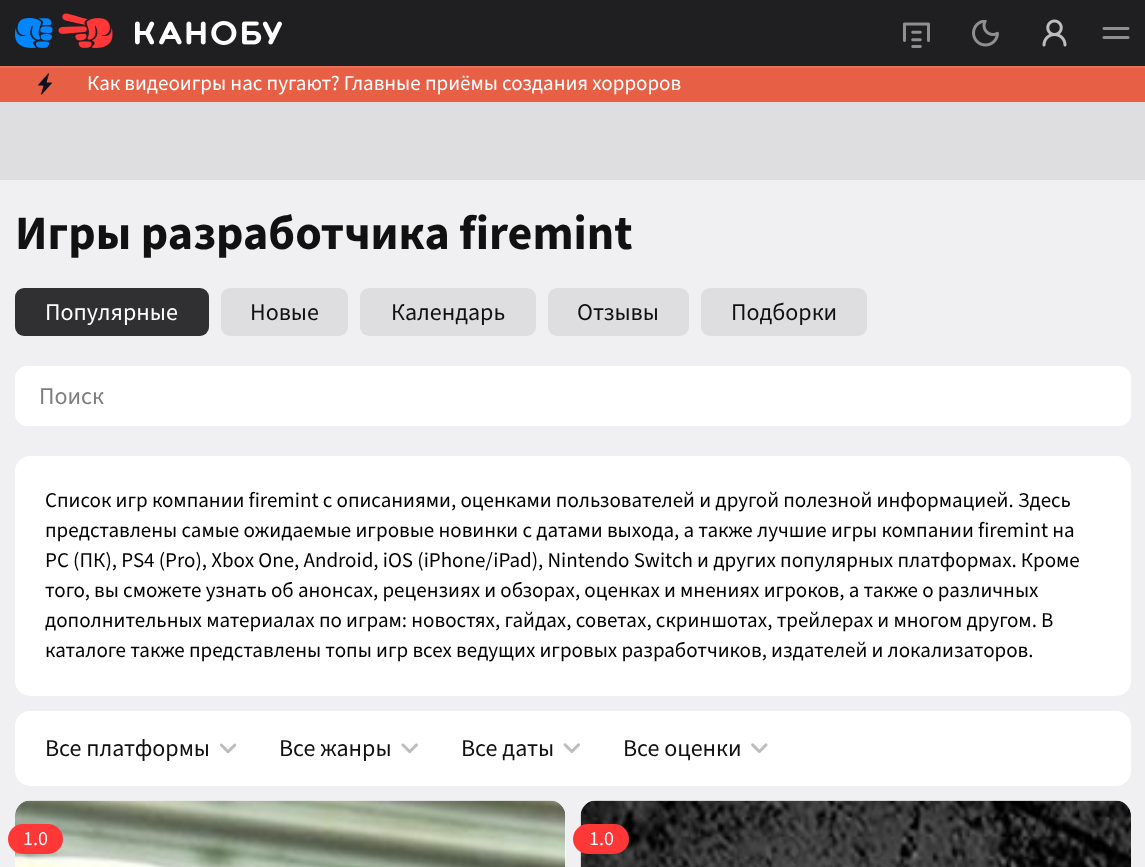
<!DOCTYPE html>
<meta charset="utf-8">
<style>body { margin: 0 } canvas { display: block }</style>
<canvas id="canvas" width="1145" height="867"></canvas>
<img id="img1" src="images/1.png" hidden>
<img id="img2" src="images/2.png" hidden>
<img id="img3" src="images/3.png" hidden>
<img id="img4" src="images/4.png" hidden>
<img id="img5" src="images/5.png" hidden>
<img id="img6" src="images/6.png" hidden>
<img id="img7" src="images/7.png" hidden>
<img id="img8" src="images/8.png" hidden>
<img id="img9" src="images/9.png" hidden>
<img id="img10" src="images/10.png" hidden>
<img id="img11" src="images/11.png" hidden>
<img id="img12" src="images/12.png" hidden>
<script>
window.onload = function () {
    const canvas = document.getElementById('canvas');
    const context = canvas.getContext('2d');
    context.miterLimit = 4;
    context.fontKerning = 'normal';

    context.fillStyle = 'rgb(240, 240, 242)';
    context.fillRect(0, 0, 1145, 867);
    context.fillStyle = 'rgb(233, 112, 88)';
    context.fillRect(0, 66, 1145, 2);
    context.fillStyle = 'rgb(31, 31, 33)';
    context.fillRect(0, 0, 1145, 66);
    context.drawImage(document.getElementById('img1'), 15, 13, 267, 35);
    context.drawImage(document.getElementById('img2'), 903, 22, 27, 26);
    context.drawImage(document.getElementById('img3'), 972, 20, 27, 27);
    context.drawImage(document.getElementById('img4'), 1042, 19, 25, 28);
    context.drawImage(document.getElementById('img5'), 1102, 27, 28, 12);
    context.fillStyle = 'rgb(231, 96, 69)';
    context.fillRect(0, 68, 1145, 34);
    context.drawImage(document.getElementById('img6'), 38, 73, 14, 22);
    context.fillStyle = 'rgb(222, 222, 224)';
    context.fillRect(0, 102, 1145, 78);
    context.fillStyle = 'rgb(48, 48, 51)';
    context.beginPath();
    context.roundRect(15, 288, 194, 48, 9);
    context.fill();
    context.fillStyle = 'rgb(222, 222, 224)';
    context.beginPath();
    context.roundRect(221, 288, 127, 48, 9);
    context.fill();
    context.beginPath();
    context.roundRect(360, 288, 176, 48, 9);
    context.fill();
    context.beginPath();
    context.roundRect(548, 288, 141, 48, 9);
    context.fill();
    context.beginPath();
    context.roundRect(701, 288, 166, 48, 9);
    context.fill();
    context.fillStyle = 'rgb(255, 255, 255)';
    context.beginPath();
    context.roundRect(15, 366, 1116, 60, 12);
    context.fill();
    context.beginPath();
    context.roundRect(15, 456, 1116, 240, 15);
    context.fill();
    context.beginPath();
    context.roundRect(15, 711, 1116, 75, 15);
    context.fill();
    context.drawImage(document.getElementById('img7'), 219, 743, 18, 11);
    context.drawImage(document.getElementById('img8'), 401, 743, 17, 11);
    context.drawImage(document.getElementById('img9'), 563, 743, 17, 10);
    context.drawImage(document.getElementById('img10'), 751, 743, 17, 10);
    context.beginPath();
    context.roundRect(15, 801, 551, 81, 15);
    context.fill();
    context.drawImage(document.getElementById('img11'), 15, 800, 551, 67);
    context.fillStyle = 'rgb(255, 55, 55)';
    context.beginPath();
    context.roundRect(8, 824, 55, 30, 15);
    context.fill();
    context.drawImage(document.getElementById('img12'), 580, 800, 551, 67);
    context.beginPath();
    context.roundRect(573, 824, 56, 30, 15);
    context.fill();
    context.font = '21px "Source Sans 3"';
    context.fillStyle = 'rgb(255, 255, 255)';
    context.fillText('Как видеоигры нас пугают? Главные приёмы создания хорроров', 87, 90);
    context.font = 'bold 48px "Source Sans 3"';
    context.fillStyle = 'rgb(17, 17, 18)';
    context.fillText('Игры разработчика firemint', 15, 249);
    context.font = '24px "Source Sans 3"';
    context.fillStyle = 'rgb(255, 255, 255)';
    context.fillText('Популярные', 45, 320);
    context.fillStyle = 'rgb(17, 17, 18)';
    context.fillText('Новые', 250, 320);
    context.fillText('Календарь', 391, 320);
    context.fillText('Отзывы', 577, 320);
    context.fillText('Подборки', 731, 320);
    context.fillStyle = 'rgb(126, 126, 128)';
    context.fillText('Поиск', 39, 404);
    context.font = '21px "Source Sans 3"';
    context.fillStyle = 'rgb(0, 0, 0)';
    context.fillText('Список игр компании firemint с описаниями, оценками пользователей и другой полезной информацией. Здесь', 45, 507);
    context.fillText('представлены самые ожидаемые игровые новинки с датами выхода, а также лучшие игры компании firemint на', 45, 537);
    context.fillText('PC (ПК), PS4 (Pro), Xbox One, Android, iOS (iPhone/iPad), Nintendo Switch и других популярных платформах. Кроме', 45, 567);
    context.fillText('того, вы сможете узнать об анонсах, рецензиях и обзорах, оценках и мнениях игроков, а также о различных', 45, 597);
    context.fillText('дополнительных материалах по играм: новостях, гайдах, советах, скриншотах, трейлерах и многом другом. В', 45, 627);
    context.fillText('каталоге также представлены топы игр всех ведущих игровых разработчиков, издателей и локализаторов.', 45, 657);
    context.font = '24px "Source Sans 3"';
    context.fillStyle = 'rgb(17, 17, 18)';
    context.fillText('Все платформы', 45, 756);
    context.fillText('Все жанры', 279, 756);
    context.fillText('Все даты', 461, 756);
    context.fillText('Все оценки', 623, 756);
    context.font = '20px "Source Sans 3"';
    context.fillStyle = 'rgb(255, 255, 255)';
    context.fillText('1.0', 23, 845);
    context.fillText('1.0', 589, 845);
};
</script>
